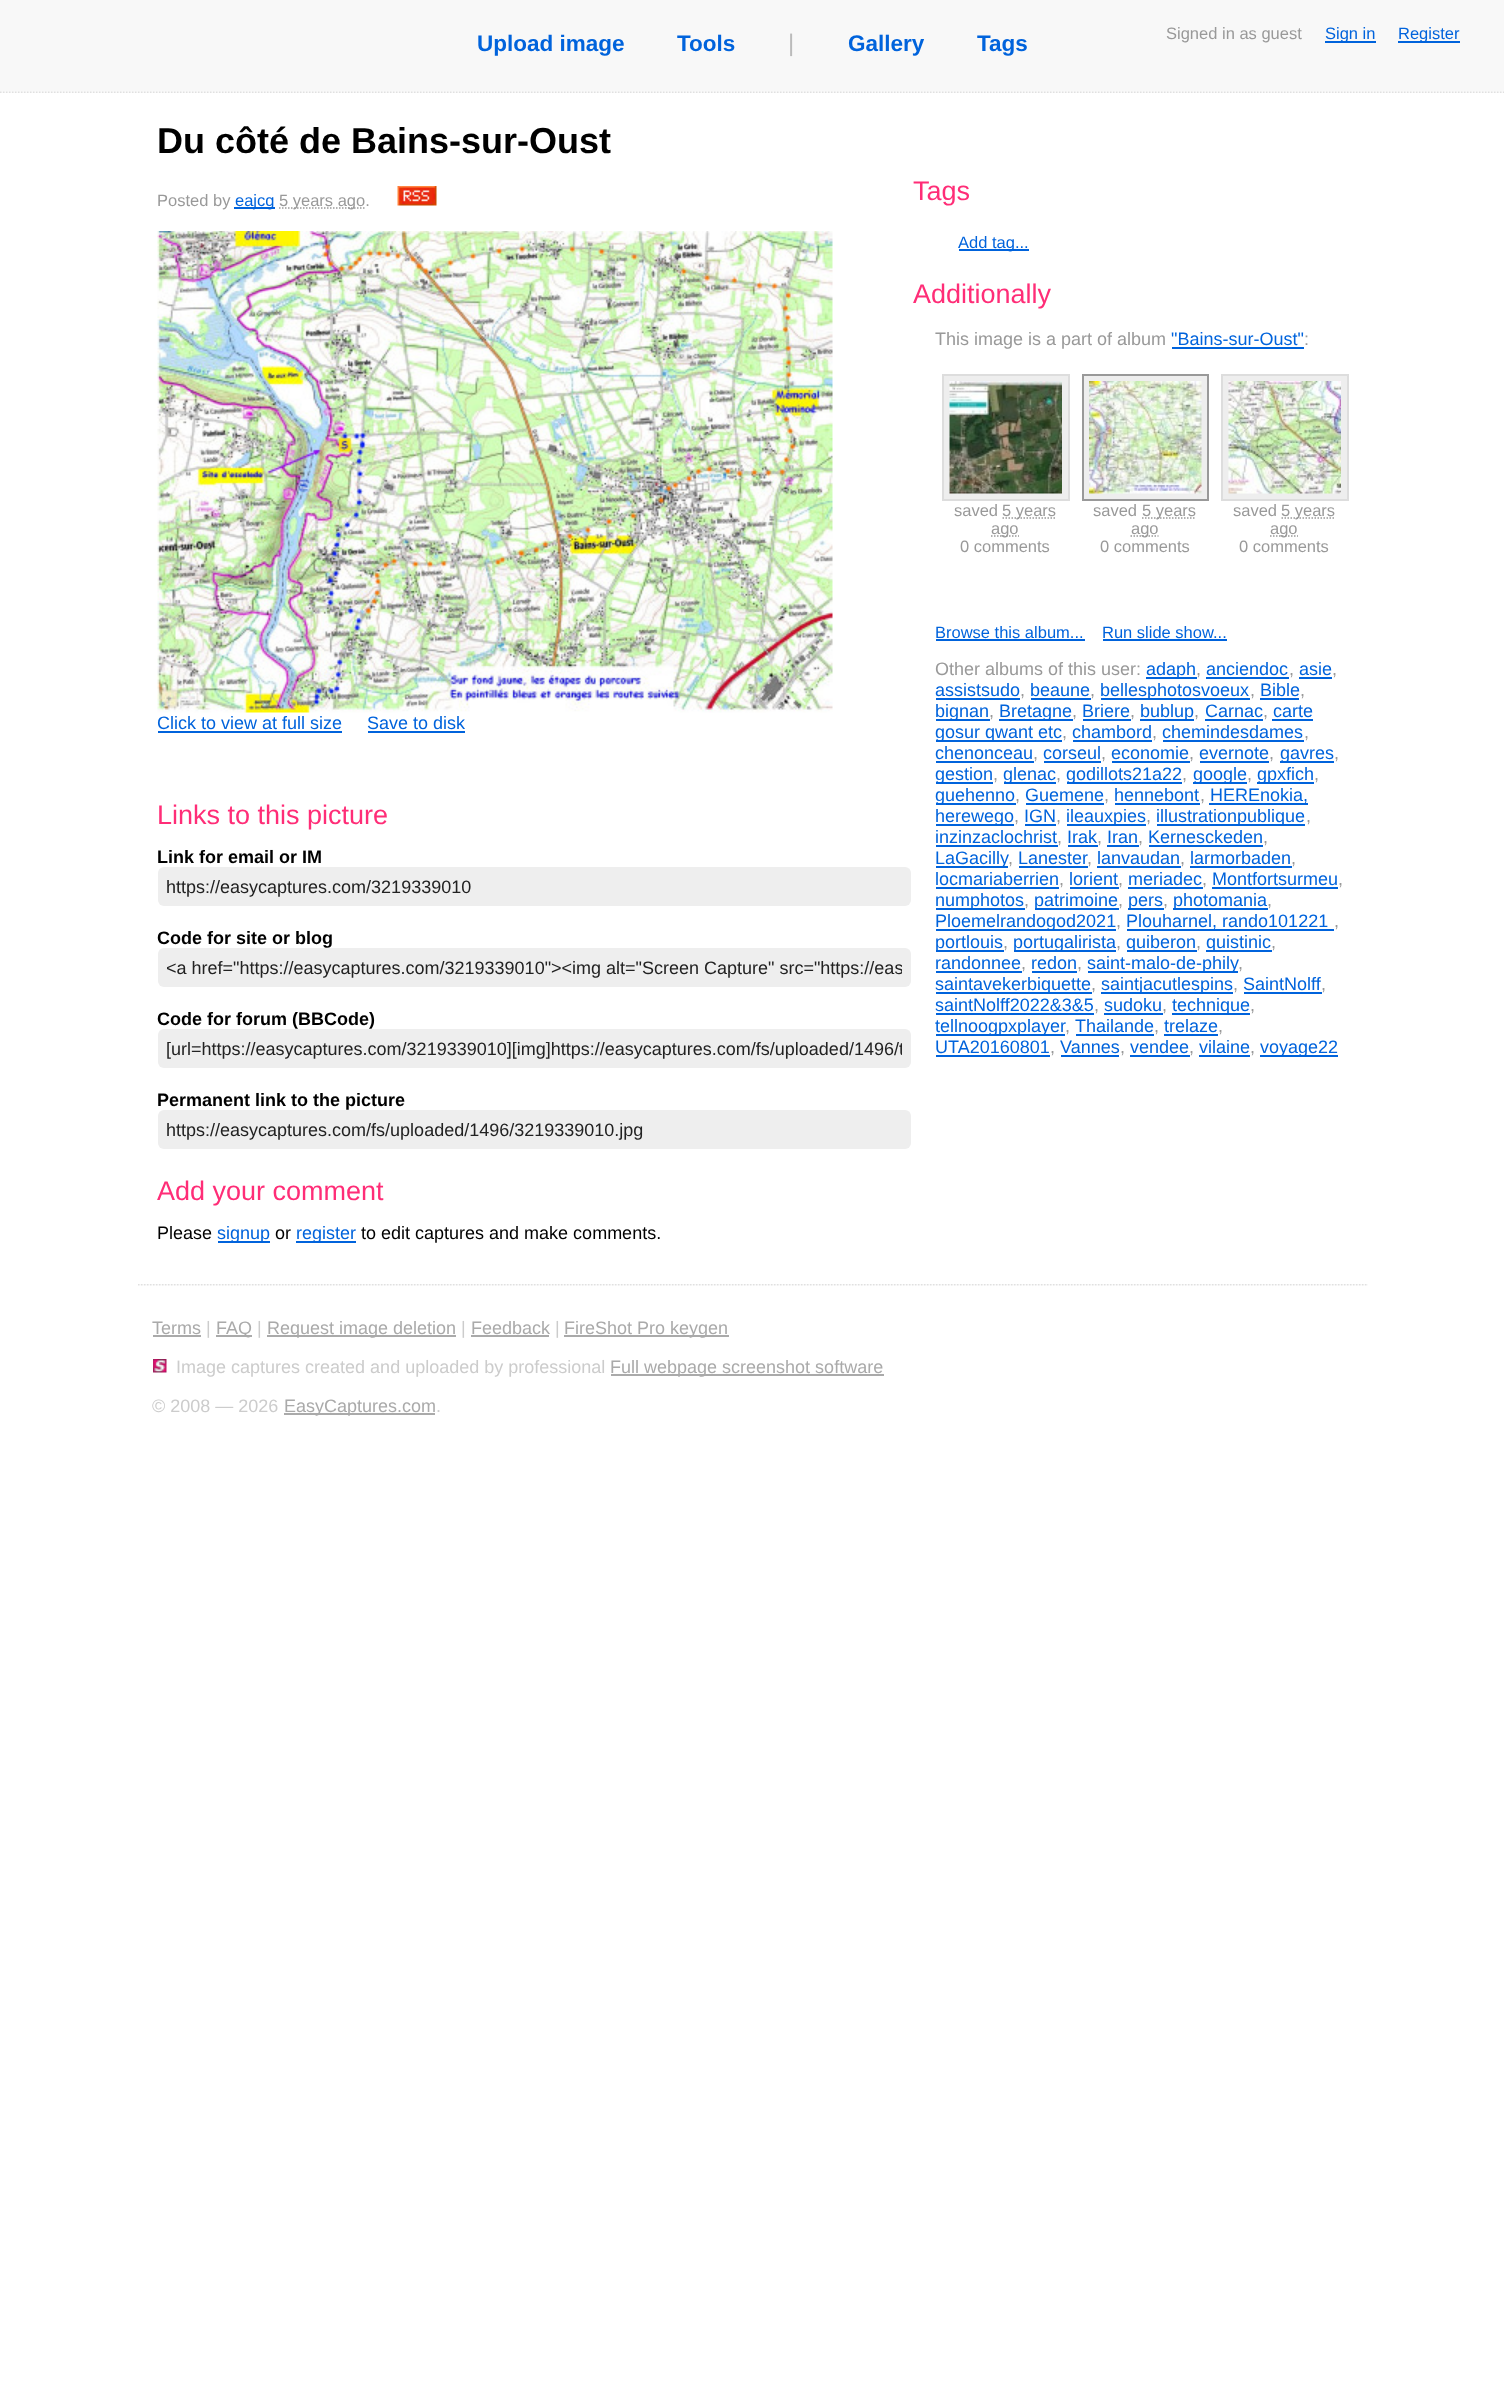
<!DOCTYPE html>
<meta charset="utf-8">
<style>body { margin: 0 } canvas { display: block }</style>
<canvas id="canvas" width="1504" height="2404"></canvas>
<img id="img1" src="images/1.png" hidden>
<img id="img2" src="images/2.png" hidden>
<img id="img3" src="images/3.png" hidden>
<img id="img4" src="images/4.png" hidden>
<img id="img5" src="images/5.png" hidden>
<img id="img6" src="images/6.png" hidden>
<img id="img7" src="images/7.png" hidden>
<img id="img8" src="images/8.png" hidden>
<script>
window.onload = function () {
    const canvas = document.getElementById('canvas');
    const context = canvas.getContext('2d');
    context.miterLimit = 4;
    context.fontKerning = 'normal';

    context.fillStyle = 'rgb(255, 255, 255)';
    context.fillRect(0, 0, 1504, 2404);
    context.fillStyle = 'rgb(248, 248, 248)';
    context.fillRect(0, 0, 1504, 92);
    context.drawImage(document.getElementById('img1'), 0, 91, 1504, 2);
    context.fillStyle = 'rgb(0, 99, 220)';
    context.fillRect(1325, 41, 51, 2);
    context.fillRect(1398, 41, 62, 2);
    context.fillRect(234, 207, 41, 2);
    context.beginPath();
    context.moveTo(279, 208);
    context.lineTo(365, 208);
    context.strokeStyle = 'rgb(153, 153, 153)';
    context.lineWidth = 1.5;
    context.setLineDash([1.5, 1.5]);
    context.stroke();
    context.drawImage(document.getElementById('img2'), 397, 186, 40, 20);
    context.drawImage(document.getElementById('img3'), 157, 231, 676, 482);
    context.fillRect(158, 731, 184, 2);
    context.fillRect(368, 731, 97, 2);
    context.fillStyle = 'rgb(238, 238, 238)';
    context.beginPath();
    context.roundRect(158, 867, 753, 39, 6);
    context.fill();
    context.beginPath();
    context.roundRect(158, 948, 753, 39, 6);
    context.fill();
    context.beginPath();
    context.roundRect(158, 1029, 753, 39, 6);
    context.fill();
    context.beginPath();
    context.roundRect(158, 1110, 753, 39, 6);
    context.fill();
    context.fillStyle = 'rgb(0, 99, 220)';
    context.fillRect(218, 1241, 52, 2);
    context.fillRect(296, 1241, 60, 2);
    context.fillRect(959, 249, 70, 2);
    context.fillRect(1172, 347, 132, 2);
    context.fillStyle = 'rgb(238, 238, 238)';
    context.beginPath();
    context.rect(943, 375, 126, 125);
    context.fill();
    context.strokeStyle = 'rgb(221, 221, 221)';
    context.lineWidth = 2;
    context.setLineDash([]);
    context.stroke();
    context.drawImage(document.getElementById('img4'), 949, 381, 113, 113);
    context.beginPath();
    context.moveTo(1002.5, 518);
    context.lineTo(1056.5, 518);
    context.strokeStyle = 'rgb(153, 153, 153)';
    context.lineWidth = 1.5;
    context.setLineDash([1.5, 1.5]);
    context.stroke();
    context.beginPath();
    context.moveTo(991, 536);
    context.lineTo(1019, 536);
    context.stroke();
    context.beginPath();
    context.rect(1083, 375, 125, 125);
    context.fill();
    context.lineWidth = 2;
    context.setLineDash([]);
    context.stroke();
    context.drawImage(document.getElementById('img5'), 1089, 381, 113, 113);
    context.beginPath();
    context.moveTo(1142, 518);
    context.lineTo(1196, 518);
    context.lineWidth = 1.5;
    context.setLineDash([1.5, 1.5]);
    context.stroke();
    context.beginPath();
    context.moveTo(1130.5, 536);
    context.lineTo(1158.5, 536);
    context.stroke();
    context.beginPath();
    context.rect(1222, 375, 126, 125);
    context.fill();
    context.strokeStyle = 'rgb(221, 221, 221)';
    context.lineWidth = 2;
    context.setLineDash([]);
    context.stroke();
    context.drawImage(document.getElementById('img6'), 1228, 381, 113, 113);
    context.beginPath();
    context.moveTo(1281.5, 518);
    context.lineTo(1335.5, 518);
    context.strokeStyle = 'rgb(153, 153, 153)';
    context.lineWidth = 1.5;
    context.setLineDash([1.5, 1.5]);
    context.stroke();
    context.beginPath();
    context.moveTo(1270, 536);
    context.lineTo(1298, 536);
    context.stroke();
    context.fillStyle = 'rgb(0, 99, 220)';
    context.fillRect(936, 639, 149, 2);
    context.fillRect(1103, 639, 124, 2);
    context.fillRect(1146, 677, 51, 2);
    context.fillRect(1206, 677, 83, 2);
    context.fillRect(1299, 677, 33, 2);
    context.fillRect(936, 698, 84, 2);
    context.fillRect(1031, 698, 60, 2);
    context.fillRect(1101, 698, 149, 2);
    context.fillRect(1260, 698, 39, 2);
    context.fillRect(936, 719, 54, 2);
    context.fillRect(999, 719, 74, 2);
    context.fillRect(1083, 719, 48, 2);
    context.fillRect(1140, 719, 54, 2);
    context.fillRect(1205, 719, 58, 2);
    context.fillRect(1272, 719, 41, 2);
    context.fillRect(936, 740, 126, 2);
    context.fillRect(1073, 740, 79, 2);
    context.fillRect(1163, 740, 141, 2);
    context.fillRect(936, 761, 98, 2);
    context.fillRect(1044, 761, 57, 2);
    context.fillRect(1112, 761, 78, 2);
    context.fillRect(1200, 761, 69, 2);
    context.fillRect(1280, 761, 54, 2);
    context.fillRect(936, 782, 57, 2);
    context.fillRect(1004, 782, 52, 2);
    context.fillRect(1067, 782, 115, 2);
    context.fillRect(1193, 782, 54, 2);
    context.fillRect(1257, 782, 57, 2);
    context.fillRect(936, 803, 80, 2);
    context.fillRect(1026, 803, 78, 2);
    context.fillRect(1115, 803, 85, 2);
    context.fillRect(1209, 803, 99, 2);
    context.fillRect(936, 824, 78, 2);
    context.fillRect(1025, 824, 31, 2);
    context.fillRect(1067, 824, 79, 2);
    context.fillRect(1157, 824, 148, 2);
    context.fillRect(936, 845, 122, 2);
    context.fillRect(1068, 845, 30, 2);
    context.fillRect(1107, 845, 32, 2);
    context.fillRect(1149, 845, 114, 2);
    context.fillRect(936, 866, 72, 2);
    context.fillRect(1019, 866, 69, 2);
    context.fillRect(1097, 866, 84, 2);
    context.fillRect(1190, 866, 102, 2);
    context.fillRect(936, 887, 123, 2);
    context.fillRect(1070, 887, 49, 2);
    context.fillRect(1128, 887, 75, 2);
    context.fillRect(1212, 887, 126, 2);
    context.fillRect(936, 908, 89, 2);
    context.fillRect(1035, 908, 84, 2);
    context.fillRect(1128, 908, 36, 2);
    context.fillRect(1173, 908, 95, 2);
    context.fillRect(936, 929, 180, 2);
    context.fillRect(1127, 929, 207, 2);
    context.fillRect(936, 950, 68, 2);
    context.fillRect(1014, 950, 102, 2);
    context.fillRect(1127, 950, 70, 2);
    context.fillRect(1206, 950, 66, 2);
    context.fillRect(936, 971, 86, 2);
    context.fillRect(1032, 971, 45, 2);
    context.fillRect(1088, 971, 150, 2);
    context.fillRect(936, 992, 156, 2);
    context.fillRect(1101, 992, 132, 2);
    context.fillRect(1244, 992, 78, 2);
    context.fillRect(936, 1013, 158, 2);
    context.fillRect(1104, 1013, 59, 2);
    context.fillRect(1172, 1013, 78, 2);
    context.fillRect(936, 1034, 129, 2);
    context.fillRect(1076, 1034, 78, 2);
    context.fillRect(1164, 1034, 54, 2);
    context.fillRect(936, 1055, 114, 2);
    context.fillRect(1061, 1055, 58, 2);
    context.fillRect(1130, 1055, 60, 2);
    context.fillRect(1199, 1055, 51, 2);
    context.fillRect(1260, 1055, 78, 2);
    context.drawImage(document.getElementById('img7'), 138, 1284, 1230, 2);
    context.fillStyle = 'rgb(170, 170, 170)';
    context.fillRect(153, 1335, 48, 2);
    context.fillRect(216, 1335, 36, 2);
    context.fillRect(267, 1335, 189, 2);
    context.fillRect(471, 1335, 78, 2);
    context.fillRect(564, 1335, 165, 2);
    context.drawImage(document.getElementById('img8'), 153, 1359, 14, 14);
    context.fillRect(611, 1374, 273, 2);
    context.fillRect(284, 1413, 151, 2);
    context.font = 'bold 22.5px Liberation Sans';
    context.fillStyle = 'rgb(0, 99, 220)';
    context.fillText('Upload image', 477, 51);
    context.fillText('Tools', 677, 51);
    context.font = '24px Liberation Sans';
    context.fillStyle = 'rgb(187, 187, 187)';
    context.fillText('|', 788, 51);
    context.font = 'bold 22.5px Liberation Sans';
    context.fillStyle = 'rgb(0, 99, 220)';
    context.fillText('Gallery', 848, 51);
    context.fillText('Tags', 977, 51);
    context.font = '16.5px Liberation Sans';
    context.fillStyle = 'rgb(153, 153, 153)';
    context.fillText('Signed in as guest', 1166, 39);
    context.fillStyle = 'rgb(0, 99, 220)';
    context.fillText('Sign in', 1325, 39);
    context.fillText('Register', 1398, 39);
    context.font = 'bold 36px Liberation Sans';
    context.fillStyle = 'rgb(0, 0, 0)';
    context.fillText('Du côté de Bains-sur-Oust', 157, 153);
    context.font = '16.5px Liberation Sans';
    context.fillStyle = 'rgb(153, 153, 153)';
    context.fillText('Posted by', 157, 206);
    context.fillStyle = 'rgb(0, 99, 220)';
    context.fillText('eajcg', 235, 206);
    context.fillStyle = 'rgb(153, 153, 153)';
    context.fillText('5 years ago.', 279, 206);
    context.font = '18px Liberation Sans';
    context.fillStyle = 'rgb(0, 99, 220)';
    context.fillText('Click to view at full size', 157, 729);
    context.fillText('Save to disk', 367, 729);
    context.font = '27px Liberation Sans';
    context.fillStyle = 'rgb(255, 45, 119)';
    context.fillText('Links to this picture', 157, 824);
    context.font = 'bold 18px Liberation Sans';
    context.fillStyle = 'rgb(0, 0, 0)';
    context.fillText('Link for email or IM', 157, 863);
    context.font = '18px Liberation Sans';
    context.fillStyle = 'rgb(34, 34, 34)';
    context.fillText('https://easycaptures.com/3219339010', 166, 893);
    context.font = 'bold 18px Liberation Sans';
    context.fillStyle = 'rgb(0, 0, 0)';
    context.fillText('Code for site or blog', 157, 944);
    context.save();
    context.beginPath();
    context.rect(167, 957, 735, 21);
    context.clip();
    context.font = '18px Liberation Sans';
    context.fillStyle = 'rgb(34, 34, 34)';
    context.fillText('<a href="https://easycaptures.com/3219339010"><img alt="Screen Capture" src="https://eas', 166, 974);
    context.restore();
    context.fillText('Code for forum (BBCode)', 157, 1025);
    context.save();
    context.beginPath();
    context.rect(167, 1038, 735, 21);
    context.clip();
    context.font = '18px Liberation Sans';
    context.fillStyle = 'rgb(34, 34, 34)';
    context.fillText('[url=https://easycaptures.com/3219339010][img]https://easycaptures.com/fs/uploaded/1496/t', 166, 1055);
    context.restore();
    context.fillText('Permanent link to the picture', 157, 1106);
    context.font = '18px Liberation Sans';
    context.fillStyle = 'rgb(34, 34, 34)';
    context.fillText('https://easycaptures.com/fs/uploaded/1496/3219339010.jpg', 166, 1136);
    context.font = '27px Liberation Sans';
    context.fillStyle = 'rgb(255, 45, 119)';
    context.fillText('Add your comment', 157, 1200);
    context.font = '18px Liberation Sans';
    context.fillStyle = 'rgb(0, 0, 0)';
    context.fillText('Please', 157, 1239);
    context.fillStyle = 'rgb(0, 99, 220)';
    context.fillText('signup', 217, 1239);
    context.fillStyle = 'rgb(0, 0, 0)';
    context.fillText('or', 275, 1239);
    context.fillStyle = 'rgb(0, 99, 220)';
    context.fillText('register', 296, 1239);
    context.fillStyle = 'rgb(0, 0, 0)';
    context.fillText('to edit captures and make comments.', 361, 1239);
    context.font = '27px Liberation Sans';
    context.fillStyle = 'rgb(255, 45, 119)';
    context.fillText('Tags', 913, 200);
    context.font = '16.5px Liberation Sans';
    context.fillStyle = 'rgb(0, 99, 220)';
    context.fillText('Add tag...', 958, 248);
    context.font = '27px Liberation Sans';
    context.fillStyle = 'rgb(255, 45, 119)';
    context.fillText('Additionally', 913, 303);
    context.font = '18px Liberation Sans';
    context.fillStyle = 'rgb(153, 153, 153)';
    context.fillText('This image is a part of album', 935, 345);
    context.fillStyle = 'rgb(0, 99, 220)';
    context.fillText('"Bains-sur-Oust"', 1171, 345);
    context.fillStyle = 'rgb(153, 153, 153)';
    context.fillText(':', 1304, 345);
    context.font = '16.5px Liberation Sans';
    context.fillText('saved', 954, 516);
    context.fillText('5 years', 1002, 516);
    context.fillText('ago', 991, 534);
    context.fillText('0 comments', 960, 552);
    context.fillText('saved', 1093, 516);
    context.fillText('5 years', 1142, 516);
    context.fillText('ago', 1131, 534);
    context.fillText('0 comments', 1100, 552);
    context.fillText('saved', 1233, 516);
    context.fillText('5 years', 1281, 516);
    context.fillText('ago', 1270, 534);
    context.fillText('0 comments', 1239, 552);
    context.fillStyle = 'rgb(0, 99, 220)';
    context.fillText('Browse this album...', 935, 638);
    context.fillText('Run slide show...', 1102, 638);
    context.font = '18px Liberation Sans';
    context.fillStyle = 'rgb(153, 153, 153)';
    context.fillText('Other albums of this user:', 935, 675);
    context.fillStyle = 'rgb(0, 99, 220)';
    context.fillText('adaph', 1146, 675);
    context.fillStyle = 'rgb(153, 153, 153)';
    context.fillText(',', 1196, 675);
    context.fillStyle = 'rgb(0, 99, 220)';
    context.fillText('anciendoc', 1206, 675);
    context.fillStyle = 'rgb(153, 153, 153)';
    context.fillText(',', 1289, 675);
    context.fillStyle = 'rgb(0, 99, 220)';
    context.fillText('asie', 1299, 675);
    context.fillStyle = 'rgb(153, 153, 153)';
    context.fillText(',', 1332, 675);
    context.fillStyle = 'rgb(0, 99, 220)';
    context.fillText('assistsudo', 935, 696);
    context.fillStyle = 'rgb(153, 153, 153)';
    context.fillText(',', 1020, 696);
    context.fillStyle = 'rgb(0, 99, 220)';
    context.fillText('beaune', 1030, 696);
    context.fillStyle = 'rgb(153, 153, 153)';
    context.fillText(',', 1090, 696);
    context.fillStyle = 'rgb(0, 99, 220)';
    context.fillText('bellesphotosvoeux', 1100, 696);
    context.fillStyle = 'rgb(153, 153, 153)';
    context.fillText(',', 1250, 696);
    context.fillStyle = 'rgb(0, 99, 220)';
    context.fillText('Bible', 1260, 696);
    context.fillStyle = 'rgb(153, 153, 153)';
    context.fillText(',', 1300, 696);
    context.fillStyle = 'rgb(0, 99, 220)';
    context.fillText('bignan', 935, 717);
    context.fillStyle = 'rgb(153, 153, 153)';
    context.fillText(',', 989, 717);
    context.fillStyle = 'rgb(0, 99, 220)';
    context.fillText('Bretagne', 999, 717);
    context.fillStyle = 'rgb(153, 153, 153)';
    context.fillText(',', 1072, 717);
    context.fillStyle = 'rgb(0, 99, 220)';
    context.fillText('Briere', 1082, 717);
    context.fillStyle = 'rgb(153, 153, 153)';
    context.fillText(',', 1130, 717);
    context.fillStyle = 'rgb(0, 99, 220)';
    context.fillText('bublup', 1140, 717);
    context.fillStyle = 'rgb(153, 153, 153)';
    context.fillText(',', 1194, 717);
    context.fillStyle = 'rgb(0, 99, 220)';
    context.fillText('Carnac', 1205, 717);
    context.fillStyle = 'rgb(153, 153, 153)';
    context.fillText(',', 1263, 717);
    context.fillStyle = 'rgb(0, 99, 220)';
    context.fillText('carte', 1273, 717);
    context.fillText('gosur qwant etc', 935, 738);
    context.fillStyle = 'rgb(153, 153, 153)';
    context.fillText(',', 1062, 738);
    context.fillStyle = 'rgb(0, 99, 220)';
    context.fillText('chambord', 1072, 738);
    context.fillStyle = 'rgb(153, 153, 153)';
    context.fillText(',', 1152, 738);
    context.fillStyle = 'rgb(0, 99, 220)';
    context.fillText('chemindesdames', 1162, 738);
    context.fillStyle = 'rgb(153, 153, 153)';
    context.fillText(',', 1304, 738);
    context.fillStyle = 'rgb(0, 99, 220)';
    context.fillText('chenonceau', 935, 759);
    context.fillStyle = 'rgb(153, 153, 153)';
    context.fillText(',', 1033, 759);
    context.fillStyle = 'rgb(0, 99, 220)';
    context.fillText('corseul', 1043, 759);
    context.fillStyle = 'rgb(153, 153, 153)';
    context.fillText(',', 1101, 759);
    context.fillStyle = 'rgb(0, 99, 220)';
    context.fillText('economie', 1111, 759);
    context.fillStyle = 'rgb(153, 153, 153)';
    context.fillText(',', 1189, 759);
    context.fillStyle = 'rgb(0, 99, 220)';
    context.fillText('evernote', 1199, 759);
    context.fillStyle = 'rgb(153, 153, 153)';
    context.fillText(',', 1269, 759);
    context.fillStyle = 'rgb(0, 99, 220)';
    context.fillText('gavres', 1280, 759);
    context.fillStyle = 'rgb(153, 153, 153)';
    context.fillText(',', 1334, 759);
    context.fillStyle = 'rgb(0, 99, 220)';
    context.fillText('gestion', 935, 780);
    context.fillStyle = 'rgb(153, 153, 153)';
    context.fillText(',', 993, 780);
    context.fillStyle = 'rgb(0, 99, 220)';
    context.fillText('glenac', 1003, 780);
    context.fillStyle = 'rgb(153, 153, 153)';
    context.fillText(',', 1056, 780);
    context.fillStyle = 'rgb(0, 99, 220)';
    context.fillText('godillots21a22', 1066, 780);
    context.fillStyle = 'rgb(153, 153, 153)';
    context.fillText(',', 1182, 780);
    context.fillStyle = 'rgb(0, 99, 220)';
    context.fillText('google', 1193, 780);
    context.fillStyle = 'rgb(153, 153, 153)';
    context.fillText(',', 1247, 780);
    context.fillStyle = 'rgb(0, 99, 220)';
    context.fillText('gpxfich', 1257, 780);
    context.fillStyle = 'rgb(153, 153, 153)';
    context.fillText(',', 1314, 780);
    context.fillStyle = 'rgb(0, 99, 220)';
    context.fillText('guehenno', 935, 801);
    context.fillStyle = 'rgb(153, 153, 153)';
    context.fillText(',', 1015, 801);
    context.fillStyle = 'rgb(0, 99, 220)';
    context.fillText('Guemene', 1025, 801);
    context.fillStyle = 'rgb(153, 153, 153)';
    context.fillText(',', 1104, 801);
    context.fillStyle = 'rgb(0, 99, 220)';
    context.fillText('hennebont', 1114, 801);
    context.fillStyle = 'rgb(153, 153, 153)';
    context.fillText(',', 1200, 801);
    context.fillStyle = 'rgb(0, 99, 220)';
    context.fillText('HEREnokia,', 1210, 801);
    context.fillText('herewego', 935, 822);
    context.fillStyle = 'rgb(153, 153, 153)';
    context.fillText(',', 1014, 822);
    context.fillStyle = 'rgb(0, 99, 220)';
    context.fillText('IGN', 1024, 822);
    context.fillStyle = 'rgb(153, 153, 153)';
    context.fillText(',', 1056, 822);
    context.fillStyle = 'rgb(0, 99, 220)';
    context.fillText('ileauxpies', 1066, 822);
    context.fillStyle = 'rgb(153, 153, 153)';
    context.fillText(',', 1146, 822);
    context.fillStyle = 'rgb(0, 99, 220)';
    context.fillText('illustrationpublique', 1156, 822);
    context.fillStyle = 'rgb(153, 153, 153)';
    context.fillText(',', 1306, 822);
    context.fillStyle = 'rgb(0, 99, 220)';
    context.fillText('inzinzaclochrist', 935, 843);
    context.fillStyle = 'rgb(153, 153, 153)';
    context.fillText(',', 1057, 843);
    context.fillStyle = 'rgb(0, 99, 220)';
    context.fillText('Irak', 1067, 843);
    context.fillStyle = 'rgb(153, 153, 153)';
    context.fillText(',', 1097, 843);
    context.fillStyle = 'rgb(0, 99, 220)';
    context.fillText('Iran', 1107, 843);
    context.fillStyle = 'rgb(153, 153, 153)';
    context.fillText(',', 1138, 843);
    context.fillStyle = 'rgb(0, 99, 220)';
    context.fillText('Kernesckeden', 1148, 843);
    context.fillStyle = 'rgb(153, 153, 153)';
    context.fillText(',', 1263, 843);
    context.fillStyle = 'rgb(0, 99, 220)';
    context.fillText('LaGacilly', 935, 864);
    context.fillStyle = 'rgb(153, 153, 153)';
    context.fillText(',', 1008, 864);
    context.fillStyle = 'rgb(0, 99, 220)';
    context.fillText('Lanester', 1018, 864);
    context.fillStyle = 'rgb(153, 153, 153)';
    context.fillText(',', 1087, 864);
    context.fillStyle = 'rgb(0, 99, 220)';
    context.fillText('lanvaudan', 1097, 864);
    context.fillStyle = 'rgb(153, 153, 153)';
    context.fillText(',', 1180, 864);
    context.fillStyle = 'rgb(0, 99, 220)';
    context.fillText('larmorbaden', 1190, 864);
    context.fillStyle = 'rgb(153, 153, 153)';
    context.fillText(',', 1291, 864);
    context.fillStyle = 'rgb(0, 99, 220)';
    context.fillText('locmariaberrien', 935, 885);
    context.fillStyle = 'rgb(153, 153, 153)';
    context.fillText(',', 1059, 885);
    context.fillStyle = 'rgb(0, 99, 220)';
    context.fillText('lorient', 1069, 885);
    context.fillStyle = 'rgb(153, 153, 153)';
    context.fillText(',', 1118, 885);
    context.fillStyle = 'rgb(0, 99, 220)';
    context.fillText('meriadec', 1128, 885);
    context.fillStyle = 'rgb(153, 153, 153)';
    context.fillText(',', 1202, 885);
    context.fillStyle = 'rgb(0, 99, 220)';
    context.fillText('Montfortsurmeu', 1212, 885);
    context.fillStyle = 'rgb(153, 153, 153)';
    context.fillText(',', 1338, 885);
    context.fillStyle = 'rgb(0, 99, 220)';
    context.fillText('numphotos', 935, 906);
    context.fillStyle = 'rgb(153, 153, 153)';
    context.fillText(',', 1024, 906);
    context.fillStyle = 'rgb(0, 99, 220)';
    context.fillText('patrimoine', 1034, 906);
    context.fillStyle = 'rgb(153, 153, 153)';
    context.fillText(',', 1118, 906);
    context.fillStyle = 'rgb(0, 99, 220)';
    context.fillText('pers', 1128, 906);
    context.fillStyle = 'rgb(153, 153, 153)';
    context.fillText(',', 1163, 906);
    context.fillStyle = 'rgb(0, 99, 220)';
    context.fillText('photomania', 1173, 906);
    context.fillStyle = 'rgb(153, 153, 153)';
    context.fillText(',', 1267, 906);
    context.fillStyle = 'rgb(0, 99, 220)';
    context.fillText('Ploemelrandogod2021', 935, 927);
    context.fillStyle = 'rgb(153, 153, 153)';
    context.fillText(',', 1116, 927);
    context.fillStyle = 'rgb(0, 99, 220)';
    context.fillText('Plouharnel, rando101221', 1126, 927);
    context.fillStyle = 'rgb(153, 153, 153)';
    context.fillText(',', 1334, 927);
    context.fillStyle = 'rgb(0, 99, 220)';
    context.fillText('portlouis', 935, 948);
    context.fillStyle = 'rgb(153, 153, 153)';
    context.fillText(',', 1003, 948);
    context.fillStyle = 'rgb(0, 99, 220)';
    context.fillText('portugalirista', 1013, 948);
    context.fillStyle = 'rgb(153, 153, 153)';
    context.fillText(',', 1116, 948);
    context.fillStyle = 'rgb(0, 99, 220)';
    context.fillText('quiberon', 1126, 948);
    context.fillStyle = 'rgb(153, 153, 153)';
    context.fillText(',', 1196, 948);
    context.fillStyle = 'rgb(0, 99, 220)';
    context.fillText('quistinic', 1206, 948);
    context.fillStyle = 'rgb(153, 153, 153)';
    context.fillText(',', 1271, 948);
    context.fillStyle = 'rgb(0, 99, 220)';
    context.fillText('randonnee', 935, 969);
    context.fillStyle = 'rgb(153, 153, 153)';
    context.fillText(',', 1021, 969);
    context.fillStyle = 'rgb(0, 99, 220)';
    context.fillText('redon', 1031, 969);
    context.fillStyle = 'rgb(153, 153, 153)';
    context.fillText(',', 1077, 969);
    context.fillStyle = 'rgb(0, 99, 220)';
    context.fillText('saint-malo-de-phily', 1087, 969);
    context.fillStyle = 'rgb(153, 153, 153)';
    context.fillText(',', 1238, 969);
    context.fillStyle = 'rgb(0, 99, 220)';
    context.fillText('saintavekerbiquette', 935, 990);
    context.fillStyle = 'rgb(153, 153, 153)';
    context.fillText(',', 1091, 990);
    context.fillStyle = 'rgb(0, 99, 220)';
    context.fillText('saintjacutlespins', 1101, 990);
    context.fillStyle = 'rgb(153, 153, 153)';
    context.fillText(',', 1233, 990);
    context.fillStyle = 'rgb(0, 99, 220)';
    context.fillText('SaintNolff', 1243, 990);
    context.fillStyle = 'rgb(153, 153, 153)';
    context.fillText(',', 1321, 990);
    context.fillStyle = 'rgb(0, 99, 220)';
    context.fillText('saintNolff2022&3&5', 935, 1011);
    context.fillStyle = 'rgb(153, 153, 153)';
    context.fillText(',', 1094, 1011);
    context.fillStyle = 'rgb(0, 99, 220)';
    context.fillText('sudoku', 1104, 1011);
    context.fillStyle = 'rgb(153, 153, 153)';
    context.fillText(',', 1162, 1011);
    context.fillStyle = 'rgb(0, 99, 220)';
    context.fillText('technique', 1172, 1011);
    context.fillStyle = 'rgb(153, 153, 153)';
    context.fillText(',', 1250, 1011);
    context.fillStyle = 'rgb(0, 99, 220)';
    context.fillText('tellnoogpxplayer', 935, 1032);
    context.fillStyle = 'rgb(153, 153, 153)';
    context.fillText(',', 1065, 1032);
    context.fillStyle = 'rgb(0, 99, 220)';
    context.fillText('Thailande', 1075, 1032);
    context.fillStyle = 'rgb(153, 153, 153)';
    context.fillText(',', 1154, 1032);
    context.fillStyle = 'rgb(0, 99, 220)';
    context.fillText('trelaze', 1164, 1032);
    context.fillStyle = 'rgb(153, 153, 153)';
    context.fillText(',', 1218, 1032);
    context.fillStyle = 'rgb(0, 99, 220)';
    context.fillText('UTA20160801', 935, 1053);
    context.fillStyle = 'rgb(153, 153, 153)';
    context.fillText(',', 1050, 1053);
    context.fillStyle = 'rgb(0, 99, 220)';
    context.fillText('Vannes', 1060, 1053);
    context.fillStyle = 'rgb(153, 153, 153)';
    context.fillText(',', 1120, 1053);
    context.fillStyle = 'rgb(0, 99, 220)';
    context.fillText('vendee', 1130, 1053);
    context.fillStyle = 'rgb(153, 153, 153)';
    context.fillText(',', 1189, 1053);
    context.fillStyle = 'rgb(0, 99, 220)';
    context.fillText('vilaine', 1199, 1053);
    context.fillStyle = 'rgb(153, 153, 153)';
    context.fillText(',', 1250, 1053);
    context.fillStyle = 'rgb(0, 99, 220)';
    context.fillText('voyage22', 1260, 1053);
    context.fillStyle = 'rgb(170, 170, 170)';
    context.fillText('Terms', 152, 1334);
    context.fillStyle = 'rgb(204, 204, 204)';
    context.fillText('|', 206, 1334);
    context.fillStyle = 'rgb(170, 170, 170)';
    context.fillText('FAQ', 216, 1334);
    context.fillStyle = 'rgb(204, 204, 204)';
    context.fillText('|', 257, 1334);
    context.fillStyle = 'rgb(170, 170, 170)';
    context.fillText('Request image deletion', 267, 1334);
    context.fillStyle = 'rgb(204, 204, 204)';
    context.fillText('|', 461, 1334);
    context.fillStyle = 'rgb(170, 170, 170)';
    context.fillText('Feedback', 471, 1334);
    context.fillStyle = 'rgb(204, 204, 204)';
    context.fillText('|', 555, 1334);
    context.fillStyle = 'rgb(170, 170, 170)';
    context.fillText('FireShot Pro keygen', 564, 1334);
    context.fillStyle = 'rgb(204, 204, 204)';
    context.fillText('Image captures created and uploaded by professional', 176, 1373);
    context.fillStyle = 'rgb(170, 170, 170)';
    context.fillText('Full webpage screenshot software', 610, 1373);
    context.fillStyle = 'rgb(204, 204, 204)';
    context.fillText('© 2008 — 2026', 152, 1412);
    context.fillStyle = 'rgb(170, 170, 170)';
    context.fillText('EasyCaptures.com', 284, 1412);
    context.fillStyle = 'rgb(204, 204, 204)';
    context.fillText('.', 436, 1412);
};
</script>
